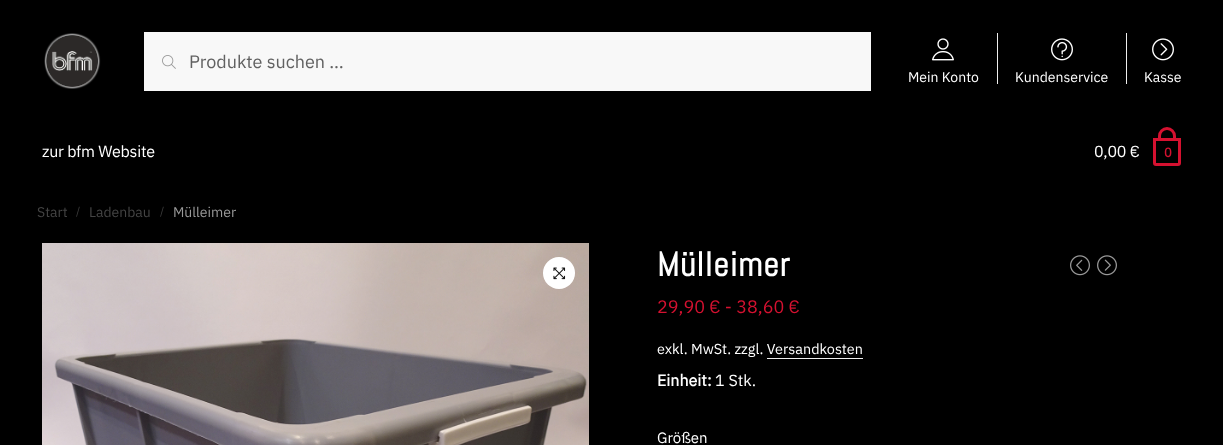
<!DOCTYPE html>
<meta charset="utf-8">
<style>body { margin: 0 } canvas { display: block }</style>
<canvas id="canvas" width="1223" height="445"></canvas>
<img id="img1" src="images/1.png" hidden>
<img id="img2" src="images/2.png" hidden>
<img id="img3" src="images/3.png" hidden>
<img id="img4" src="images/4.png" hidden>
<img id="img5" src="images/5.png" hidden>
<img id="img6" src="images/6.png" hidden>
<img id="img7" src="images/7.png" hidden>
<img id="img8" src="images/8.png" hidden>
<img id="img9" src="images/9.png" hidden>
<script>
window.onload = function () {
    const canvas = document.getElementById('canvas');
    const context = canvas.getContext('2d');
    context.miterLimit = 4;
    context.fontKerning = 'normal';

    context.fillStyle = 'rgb(0, 0, 0)';
    context.fillRect(0, 0, 1223, 445);
    context.drawImage(document.getElementById('img1'), 44, 33, 57, 56);
    context.fillStyle = 'rgb(248, 248, 248)';
    context.fillRect(144, 32, 727, 59);
    context.drawImage(document.getElementById('img2'), 162, 55, 14, 14);
    context.drawImage(document.getElementById('img3'), 932, 38, 22, 23);
    context.fillStyle = 'rgb(238, 238, 238)';
    context.fillRect(997, 33, 1, 51);
    context.drawImage(document.getElementById('img4'), 1051, 38, 22, 23);
    context.fillRect(1126, 33, 1, 51);
    context.drawImage(document.getElementById('img5'), 1152, 38, 22, 23);
    context.beginPath();
    context.roundRect(1154.5, 139.5, 25, 25, [0, 0, 1.5, 1.5]);
    context.strokeStyle = 'rgb(213, 17, 48)';
    context.lineWidth = 3;
    context.stroke();
    context.beginPath();
    context.roundRect(1159.5, 128.5, 15, 11, [7.5, 7.5, 0, 0]);
    context.stroke();
    context.drawImage(document.getElementById('img6'), 42, 243, 547, 202);
    context.fillStyle = 'rgb(255, 255, 255)';
    context.beginPath();
    context.arc(559, 273, 16, 0, 2 * Math.PI);
    context.fill();
    context.drawImage(document.getElementById('img7'), 553, 267, 13, 13);
    context.drawImage(document.getElementById('img8'), 1070, 255, 20, 21);
    context.drawImage(document.getElementById('img9'), 1097, 255, 20, 21);
    context.fillStyle = 'rgb(238, 238, 238)';
    context.fillRect(767, 358, 96, 1);
    context.font = '18px IBM Plex Sans';
    context.fillStyle = 'rgb(97, 97, 97)';
    context.fillText('Produkte suchen …', 189, 68);
    context.font = '14px IBM Plex Sans';
    context.fillStyle = 'rgb(255, 255, 255)';
    context.fillText('Mein Konto', 908, 82);
    context.fillText('Kundenservice', 1015, 82);
    context.fillText('Kasse', 1144, 82);
    context.letterSpacing = '-0.25px';
    context.font = '16px IBM Plex Sans';
    context.fillText('zur bfm Website', 42, 157);
    context.fillText('0,00 €', 1094, 157);
    context.letterSpacing = '-1px';
    context.font = 'bold 13px IBM Plex Sans';
    context.fillStyle = 'rgb(213, 17, 48)';
    context.fillText('0', 1164, 157);
    context.letterSpacing = '0px';
    context.font = '14px IBM Plex Sans';
    context.fillStyle = 'rgb(68, 68, 68)';
    context.fillText('Start', 37, 217);
    context.font = '11px IBM Plex Sans';
    context.fillStyle = 'rgb(61, 61, 61)';
    context.fillText('/', 76, 215);
    context.font = '14px IBM Plex Sans';
    context.fillStyle = 'rgb(68, 68, 68)';
    context.fillText('Ladenbau', 89, 217);
    context.font = '11px IBM Plex Sans';
    context.fillStyle = 'rgb(61, 61, 61)';
    context.fillText('/', 160, 215);
    context.font = '14px IBM Plex Sans';
    context.fillStyle = 'rgb(153, 153, 153)';
    context.fillText('Mülleimer', 173, 217);
    context.letterSpacing = '1px';
    context.font = 'bold 34px Abel';
    context.fillStyle = 'rgb(255, 255, 255)';
    context.fillText('Mülleimer', 657, 276);
    context.letterSpacing = '0px';
    context.font = '18px IBM Plex Sans';
    context.fillStyle = 'rgb(213, 17, 48)';
    context.fillText('29,90 € - 38,60 €', 657, 313);
    context.font = '14.4px IBM Plex Sans';
    context.fillStyle = 'rgb(255, 255, 255)';
    context.fillText('exkl. MwSt. zzgl. Versandkosten', 657, 354);
    context.font = 'bold 16px IBM Plex Sans';
    context.fillText('Einheit:', 657, 386);
    context.font = '16px IBM Plex Sans';
    context.fillText('1 Stk.', 715, 386);
    context.font = '15px IBM Plex Sans';
    context.fillText('Größen', 657, 443);
};
</script>
